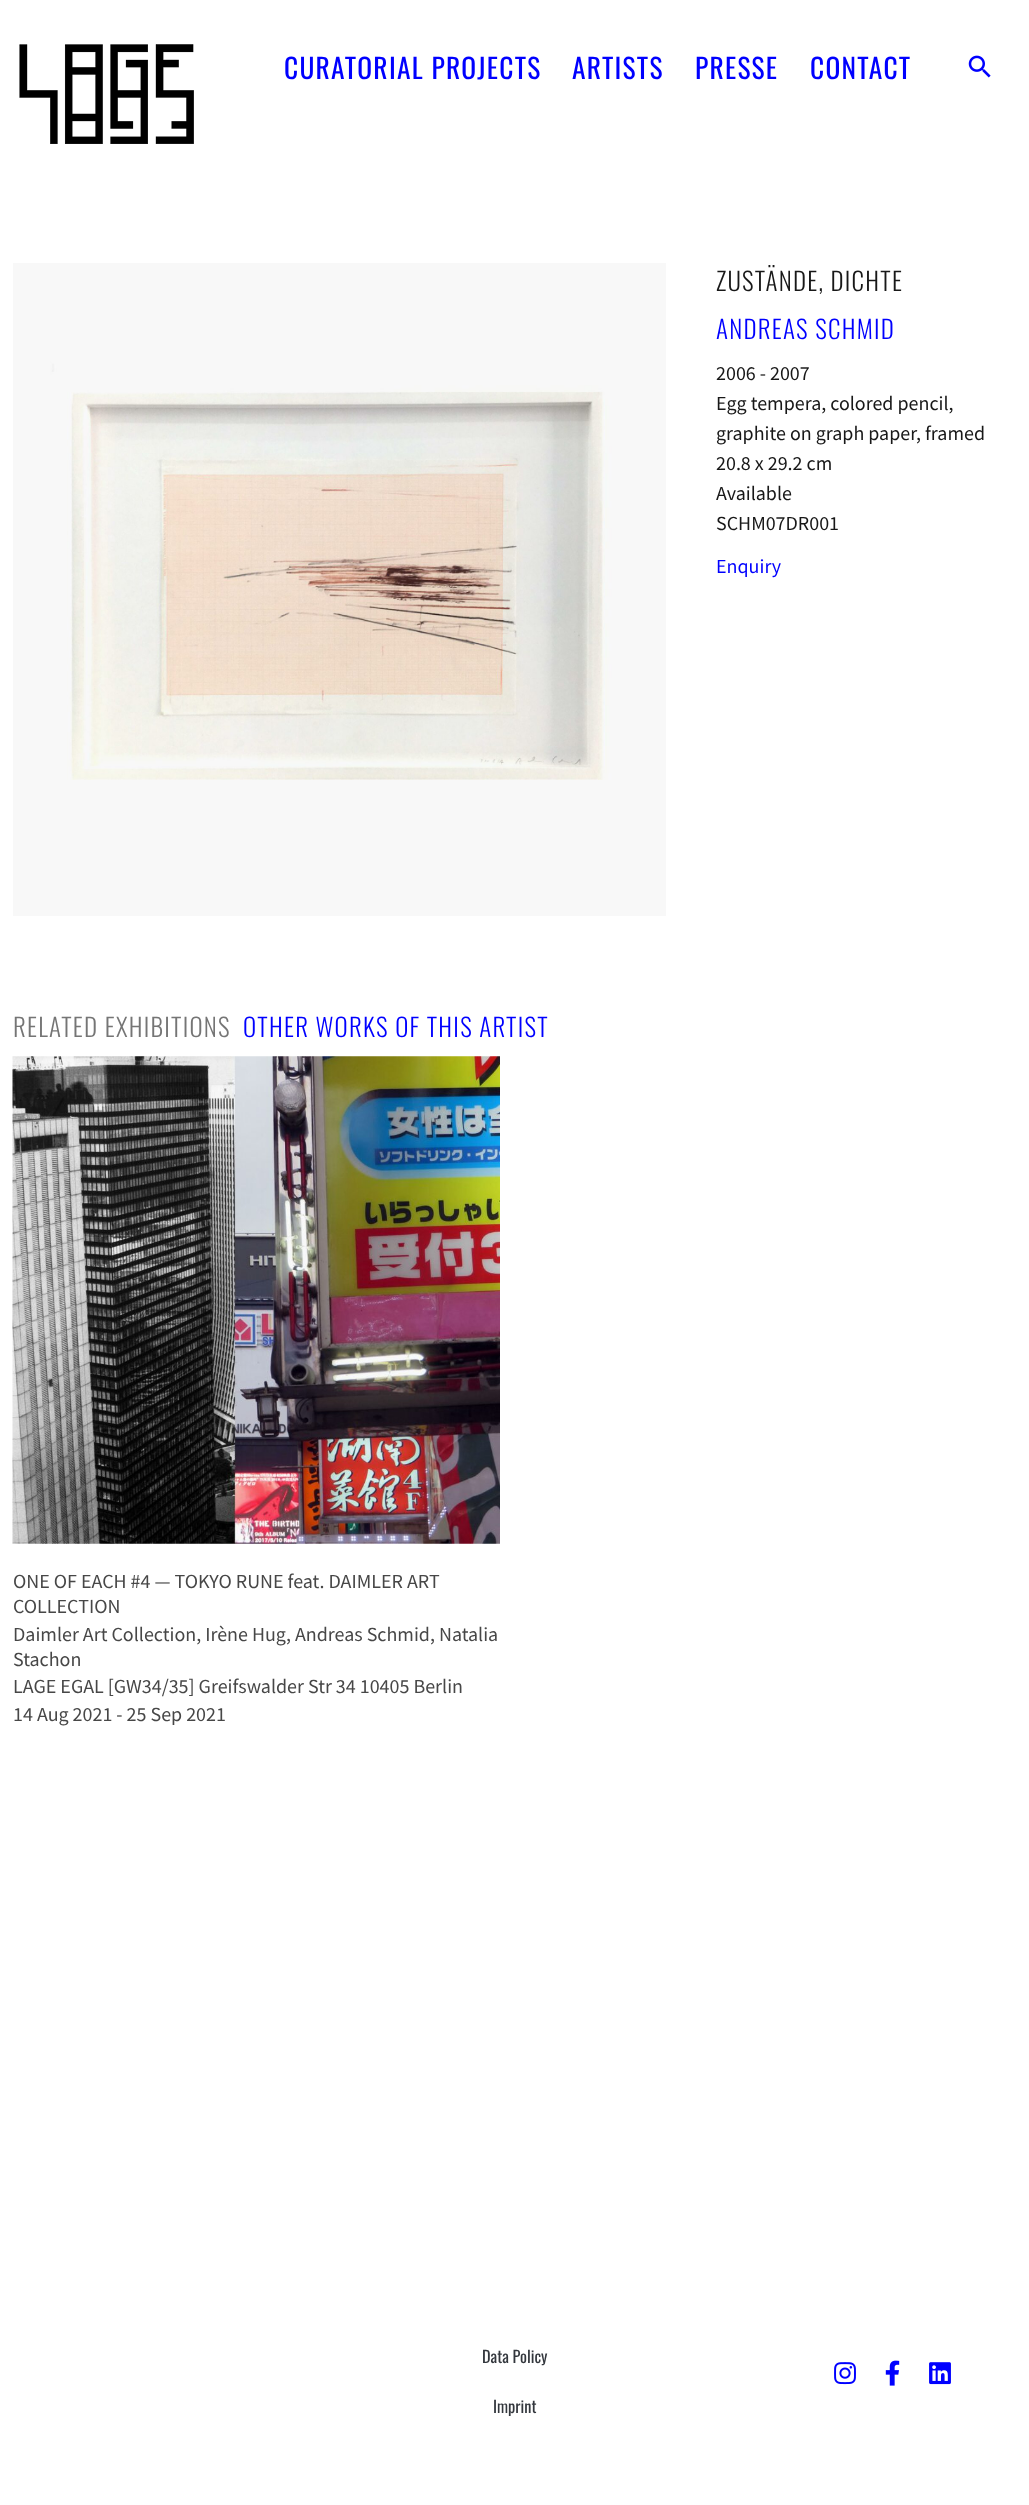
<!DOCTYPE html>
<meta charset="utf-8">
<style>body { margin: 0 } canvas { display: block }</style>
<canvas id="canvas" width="1029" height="2505"></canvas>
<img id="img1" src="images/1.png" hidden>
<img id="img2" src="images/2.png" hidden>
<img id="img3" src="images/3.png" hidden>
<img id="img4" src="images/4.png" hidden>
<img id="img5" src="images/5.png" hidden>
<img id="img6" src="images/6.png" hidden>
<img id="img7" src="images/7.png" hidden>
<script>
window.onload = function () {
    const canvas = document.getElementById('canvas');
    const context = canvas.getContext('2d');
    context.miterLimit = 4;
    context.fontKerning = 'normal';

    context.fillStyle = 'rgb(255, 255, 255)';
    context.fillRect(0, 0, 1029, 2505);
    context.drawImage(document.getElementById('img1'), 19, 44, 175, 100);
    context.drawImage(document.getElementById('img2'), 968, 55, 23, 23);
    context.drawImage(document.getElementById('img3'), 13, 263, 653, 653);
    context.drawImage(document.getElementById('img4'), 12, 1056, 488, 488);
    context.drawImage(document.getElementById('img5'), 834, 2362, 22, 23);
    context.drawImage(document.getElementById('img6'), 885, 2360, 15, 26);
    context.drawImage(document.getElementById('img7'), 929, 2362, 22, 23);
    context.letterSpacing = '1.25px';
    context.font = '27.5px Oswald';
    context.fillStyle = 'rgb(0, 0, 255)';
    context.fillText('CURATORIAL PROJECTS', 284, 79);
    context.fillText('ARTISTS', 572, 79);
    context.fillText('PRESSE', 695, 79);
    context.fillText('CONTACT', 810, 79);
    context.font = '300 25px Oswald';
    context.fillStyle = 'rgb(24, 24, 24)';
    context.fillText('ZUSTÄNDE, DICHTE', 716, 291);
    context.fillStyle = 'rgb(0, 0, 255)';
    context.fillText('ANDREAS SCHMID', 716, 339);
    context.letterSpacing = '0px';
    context.font = '20px Source Sans Pro';
    context.fillStyle = 'rgb(24, 24, 24)';
    context.fillText('2006 - 2007', 716, 380);
    context.fillText('Egg tempera, colored pencil,', 716, 410);
    context.fillText('graphite on graph paper, framed', 716, 440);
    context.fillText('20.8 x 29.2 cm', 716, 470);
    context.fillText('Available', 716, 500);
    context.fillText('SCHM07DR001', 716, 530);
    context.fillStyle = 'rgb(0, 0, 255)';
    context.fillText('Enquiry', 716, 573);
    context.letterSpacing = '1.25px';
    context.font = '300 25px Oswald';
    context.fillStyle = 'rgb(117, 117, 117)';
    context.fillText('RELATED EXHIBITIONS', 13, 1037);
    context.fillStyle = 'rgb(0, 0, 255)';
    context.fillText('OTHER WORKS OF THIS ARTIST', 243, 1037);
    context.letterSpacing = '0px';
    context.font = '20px Source Sans Pro';
    context.fillStyle = 'rgb(71, 71, 71)';
    context.fillText('ONE OF EACH #4 — TOKYO RUNE feat. DAIMLER ART', 13, 1588);
    context.fillText('COLLECTION', 13, 1613);
    context.fillText('Daimler Art Collection, Irène Hug, Andreas Schmid, Natalia', 13, 1641);
    context.fillText('Stachon', 13, 1666);
    context.fillText('LAGE EGAL [GW34/35] Greifswalder Str 34 10405 Berlin', 13, 1693);
    context.fillText('14 Aug 2021 - 25 Sep 2021', 13, 1721);
    context.font = '16.25px Oswald';
    context.fillStyle = 'rgb(51, 55, 61)';
    context.fillText('Data Policy', 482, 2363);
    context.fillText('Imprint', 493, 2413);
};
</script>
